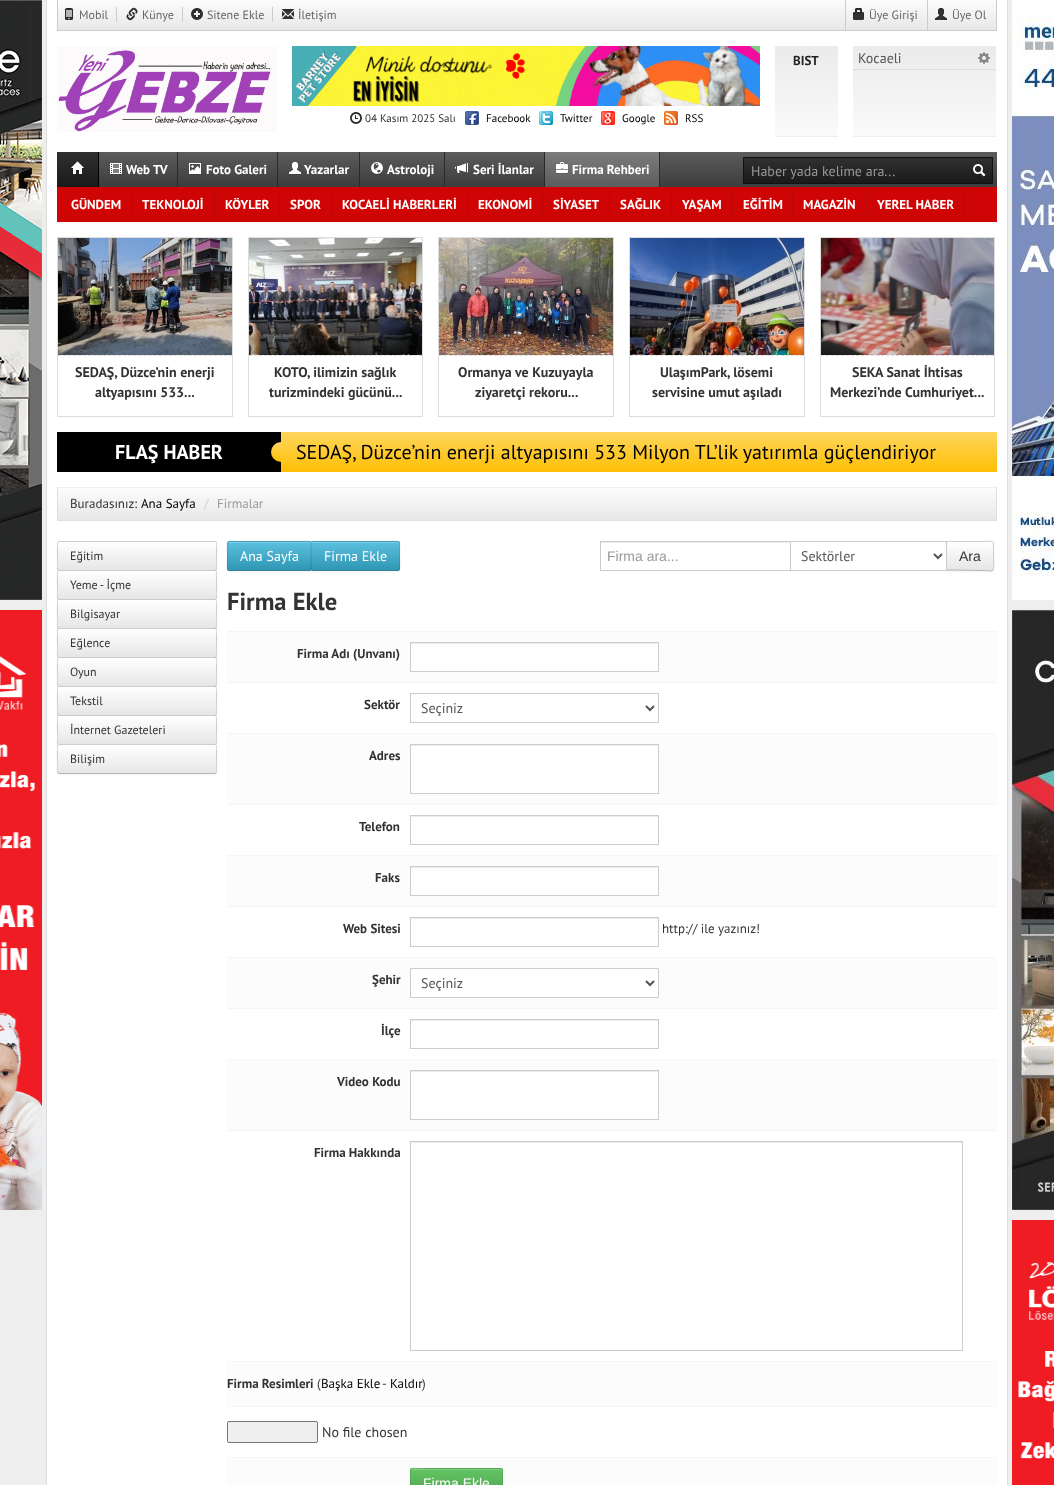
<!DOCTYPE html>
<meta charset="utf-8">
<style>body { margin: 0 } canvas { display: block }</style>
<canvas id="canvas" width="1054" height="1485"></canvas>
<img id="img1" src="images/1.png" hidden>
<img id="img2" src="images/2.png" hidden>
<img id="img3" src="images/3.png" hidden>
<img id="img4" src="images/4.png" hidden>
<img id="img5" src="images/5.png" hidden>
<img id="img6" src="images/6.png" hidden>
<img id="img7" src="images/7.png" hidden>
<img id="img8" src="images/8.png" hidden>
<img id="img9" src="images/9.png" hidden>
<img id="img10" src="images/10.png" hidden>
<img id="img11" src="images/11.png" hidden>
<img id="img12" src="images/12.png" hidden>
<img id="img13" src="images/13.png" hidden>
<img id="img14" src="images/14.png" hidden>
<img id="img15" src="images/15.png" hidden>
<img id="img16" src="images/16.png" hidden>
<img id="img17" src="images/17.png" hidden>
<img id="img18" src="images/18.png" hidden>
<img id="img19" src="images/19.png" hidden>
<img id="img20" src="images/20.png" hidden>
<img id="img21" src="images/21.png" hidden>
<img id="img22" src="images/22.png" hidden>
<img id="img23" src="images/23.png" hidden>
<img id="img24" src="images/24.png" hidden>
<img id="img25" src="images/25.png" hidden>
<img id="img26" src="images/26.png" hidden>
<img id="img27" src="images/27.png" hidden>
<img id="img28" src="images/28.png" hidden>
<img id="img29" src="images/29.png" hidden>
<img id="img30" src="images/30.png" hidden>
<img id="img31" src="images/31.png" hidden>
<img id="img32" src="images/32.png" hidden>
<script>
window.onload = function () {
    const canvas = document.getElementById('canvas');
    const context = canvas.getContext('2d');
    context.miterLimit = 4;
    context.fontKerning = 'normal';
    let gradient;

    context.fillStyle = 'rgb(238, 238, 238)';
    context.fillRect(0, 0, 1054, 1485);
    context.drawImage(document.getElementById('img1'), 0, 0, 42, 600);
    context.drawImage(document.getElementById('img2'), 0, 610, 42, 600);
    context.fillStyle = 'rgb(255, 255, 255)';
    context.fillRect(47, 0, 960, 1485);
    context.fillStyle = 'rgb(221, 221, 221)';
    context.fillRect(1007, 0, 1, 1485);
    context.fillRect(46, 0, 1, 1485);
    context.fillStyle = 'rgb(204, 204, 204)';
    context.fillRect(57, 30, 940, 1);
    gradient = context.createLinearGradient(527, 0, 527, 30);
    gradient.addColorStop(0, 'rgb(252, 252, 252)');
    gradient.addColorStop(0.99, 'rgb(232, 232, 232)');
    context.fillStyle = gradient;
    context.fillRect(58, 0, 938, 30);
    context.fillStyle = 'rgb(204, 204, 204)';
    context.fillRect(996, 0, 1, 30);
    context.fillRect(57, 0, 1, 30);
    context.fillRect(116, 7, 1, 15);
    context.drawImage(document.getElementById('img3'), 65, 8, 8, 12);
    context.fillRect(182, 7, 1, 15);
    context.drawImage(document.getElementById('img4'), 126, 7, 12, 14);
    context.fillRect(272, 7, 1, 15);
    context.drawImage(document.getElementById('img5'), 191, 8, 12, 12);
    context.drawImage(document.getElementById('img6'), 282, 9, 12, 10);
    context.fillRect(845, 0, 1, 30);
    context.drawImage(document.getElementById('img7'), 853, 8, 11, 12);
    context.fillRect(927, 0, 1, 30);
    context.drawImage(document.getElementById('img8'), 935, 8, 12, 12);
    context.drawImage(document.getElementById('img9'), 57, 46, 220, 86);
    gradient = context.createLinearGradient(807, 46, 807, 136);
    gradient.addColorStop(0, 'rgb(235, 235, 235)');
    gradient.addColorStop(1, 'rgb(250, 250, 250)');
    context.fillStyle = gradient;
    context.fillRect(775, 46, 63, 90);
    context.fillStyle = 'rgb(238, 238, 238)';
    context.fillRect(775, 136, 63, 1);
    gradient = context.createLinearGradient(925, 46, 925, 136);
    gradient.addColorStop(0, 'rgb(235, 235, 235)');
    gradient.addColorStop(1, 'rgb(250, 250, 250)');
    context.fillStyle = gradient;
    context.fillRect(853, 46, 143, 90);
    context.fillStyle = 'rgb(238, 238, 238)';
    context.fillRect(853, 136, 143, 1);
    context.drawImage(document.getElementById('img10'), 978, 52, 12, 12);
    context.beginPath();
    context.moveTo(853, 69.5);
    context.lineTo(996, 69.5);
    context.strokeStyle = 'rgb(204, 204, 204)';
    context.setLineDash([1, 1]);
    context.stroke();
    context.drawImage(document.getElementById('img11'), 292, 46, 468, 60);
    context.drawImage(document.getElementById('img12'), 350, 112, 12, 12);
    context.drawImage(document.getElementById('img13'), 465, 111, 14, 14);
    context.drawImage(document.getElementById('img14'), 539, 111, 14, 14);
    context.drawImage(document.getElementById('img15'), 601, 111, 14, 14);
    context.drawImage(document.getElementById('img16'), 664, 111, 14, 14);
    gradient = context.createLinearGradient(527, 152, 527, 187);
    gradient.addColorStop(0, 'rgb(92, 92, 92)');
    gradient.addColorStop(1, 'rgb(60, 60, 60)');
    context.fillStyle = gradient;
    context.fillRect(99, 152, 898, 35);
    gradient = context.createLinearGradient(78, 152, 78, 187);
    gradient.addColorStop(0, 'rgb(48, 48, 48)');
    gradient.addColorStop(1, 'rgb(26, 26, 26)');
    context.fillStyle = gradient;
    context.fillRect(57, 152, 41, 35);
    context.fillStyle = 'rgb(0, 0, 0)';
    context.fillRect(98, 152, 1, 35);
    context.drawImage(document.getElementById('img17'), 71, 161, 13, 13);
    context.fillStyle = 'rgb(42, 42, 42)';
    context.fillRect(177, 152, 1, 35);
    context.drawImage(document.getElementById('img18'), 110, 163, 12, 12);
    context.fillRect(277, 152, 1, 35);
    context.drawImage(document.getElementById('img19'), 189, 163, 12, 12);
    context.fillRect(359, 152, 1, 35);
    context.drawImage(document.getElementById('img20'), 289, 162, 12, 13);
    context.fillRect(444, 152, 1, 35);
    context.drawImage(document.getElementById('img21'), 371, 162, 12, 13);
    context.fillRect(544, 152, 1, 35);
    context.drawImage(document.getElementById('img22'), 455, 163, 13, 11);
    gradient = context.createLinearGradient(602, 152, 602, 187);
    gradient.addColorStop(0.01, 'rgb(124, 124, 124)');
    gradient.addColorStop(1, 'rgb(92, 92, 92)');
    context.fillStyle = gradient;
    context.fillRect(545, 152, 114, 35);
    context.fillStyle = 'rgb(42, 42, 42)';
    context.fillRect(659, 152, 1, 35);
    context.drawImage(document.getElementById('img23'), 556, 162, 12, 12);
    gradient = context.createLinearGradient(868, 158, 868, 183);
    gradient.addColorStop(0, 'rgb(48, 48, 48)');
    gradient.addColorStop(1, 'rgb(26, 26, 26)');
    context.fillStyle = gradient;
    context.fillRect(744, 159, 248, 24);
    context.fillStyle = 'rgb(44, 44, 44)';
    context.fillRect(744, 158, 248, 1);
    context.strokeStyle = 'rgb(17, 17, 17)';
    context.setLineDash([]);
    context.strokeRect(743.5, 157.5, 249, 26);
    context.drawImage(document.getElementById('img24'), 973, 164, 13, 13);
    context.fillStyle = 'rgb(207, 4, 4)';
    context.fillRect(57, 187, 940, 35);
    context.fillStyle = 'rgb(190, 6, 6)';
    context.fillRect(131, 191, 1, 27);
    context.fillRect(214, 191, 1, 27);
    context.fillRect(279, 191, 1, 27);
    context.fillRect(331, 191, 1, 27);
    context.fillRect(467, 191, 1, 27);
    context.fillRect(542, 191, 1, 27);
    context.fillRect(609, 191, 1, 27);
    context.fillRect(671, 191, 1, 27);
    context.fillRect(732, 191, 1, 27);
    context.fillRect(792, 191, 1, 27);
    context.fillRect(866, 191, 1, 27);
    context.fillRect(964, 191, 1, 27);
    context.strokeStyle = 'rgb(221, 221, 221)';
    context.strokeRect(57.5, 237.5, 175, 179);
    context.drawImage(document.getElementById('img25'), 58, 238, 174, 117);
    context.beginPath();
    context.moveTo(58, 355.5);
    context.lineTo(232, 355.5);
    context.setLineDash([3, 2.03]);
    context.stroke();
    context.setLineDash([]);
    context.strokeRect(248.5, 237.5, 174, 179);
    context.drawImage(document.getElementById('img26'), 249, 238, 173, 117);
    context.beginPath();
    context.moveTo(249, 355.5);
    context.lineTo(422, 355.5);
    context.setLineDash([3, 2]);
    context.stroke();
    context.setLineDash([]);
    context.strokeRect(438.5, 237.5, 175, 179);
    context.drawImage(document.getElementById('img27'), 439, 238, 174, 117);
    context.beginPath();
    context.moveTo(439, 355.5);
    context.lineTo(613, 355.5);
    context.setLineDash([3, 2.03]);
    context.stroke();
    context.setLineDash([]);
    context.strokeRect(629.5, 237.5, 175, 179);
    context.drawImage(document.getElementById('img28'), 630, 238, 174, 117);
    context.beginPath();
    context.moveTo(630, 355.5);
    context.lineTo(804, 355.5);
    context.setLineDash([3, 2.03]);
    context.stroke();
    context.setLineDash([]);
    context.strokeRect(820.5, 237.5, 174, 179);
    context.drawImage(document.getElementById('img29'), 821, 238, 173, 117);
    context.beginPath();
    context.moveTo(821, 355.5);
    context.lineTo(994, 355.5);
    context.setLineDash([3, 2]);
    context.stroke();
    context.fillStyle = 'rgb(0, 0, 0)';
    context.fillRect(57, 432, 224, 40);
    gradient = context.createLinearGradient(276, 442, 276, 462);
    gradient.addColorStop(0, 'rgb(255, 214, 94)');
    gradient.addColorStop(1, 'rgb(254, 191, 4)');
    context.fillStyle = gradient;
    context.beginPath();
    context.roundRect(271, 442, 10, 20, [10, 0, 0, 10]);
    context.fill();
    gradient = context.createLinearGradient(639, 432, 639, 472);
    gradient.addColorStop(0, 'rgb(255, 214, 94)');
    gradient.addColorStop(1, 'rgb(254, 191, 4)');
    context.fillStyle = gradient;
    context.fillRect(281, 432, 716, 40);
    gradient = context.createLinearGradient(527, 488, 527, 520);
    gradient.addColorStop(0, 'rgb(252, 252, 252)');
    gradient.addColorStop(0.99, 'rgb(232, 232, 232)');
    context.fillStyle = gradient;
    context.fillRect(58, 488, 938, 32);
    context.fillStyle = 'rgb(240, 240, 240)';
    context.fillRect(57, 487, 940, 1);
    context.fillStyle = 'rgb(223, 223, 223)';
    context.fillRect(996, 487, 1, 34);
    context.fillRect(57, 520, 940, 1);
    context.fillRect(57, 487, 1, 34);
    context.fillStyle = 'rgba(0, 0, 0, 0.05)';
    context.filter = 'blur(1px)';
    context.beginPath();
    context.roundRect(57, 542, 160, 30, 2);
    context.fill();
    context.filter = 'none';
    context.save();
    context.beginPath();
    context.roundRect(57, 541, 160, 30, 2);
    context.clip();
    gradient = context.createLinearGradient(137, 542, 137, 570);
    gradient.addColorStop(0, 'rgb(255, 255, 255)');
    gradient.addColorStop(1, 'rgb(230, 230, 230)');
    context.fillStyle = gradient;
    context.fillRect(57, 542, 160, 28);
    context.restore();
    context.beginPath();
    context.moveTo(216, 570);
    context.lineTo(215, 570.5);
    context.lineTo(59, 570.5);
    context.lineTo(58, 570);
    context.strokeStyle = 'rgb(179, 179, 179)';
    context.setLineDash([]);
    context.stroke();
    context.save();
    context.beginPath();
    context.rect(57, 541, 160, 248);
    context.clip();
    context.beginPath();
    context.moveTo(58, 570);
    context.bezierCurveTo(56.5, 568.5, 57.5, 558, 57.5, 556);
    context.lineTo(57.5, 547.5);
    context.bezierCurveTo(57.5, 547, 56.5, 541.5, 59, 541.5);
    context.lineTo(215, 541.5);
    context.bezierCurveTo(217.5, 541.5, 216.5, 547, 216.5, 547.5);
    context.lineTo(216.5, 556);
    context.bezierCurveTo(216.5, 558, 217.5, 568.5, 216, 570);
    context.strokeStyle = 'rgb(204, 204, 204)';
    context.stroke();
    context.restore();
    context.filter = 'blur(1px)';
    context.beginPath();
    context.roundRect(57, 571, 160, 30, 2);
    context.fill();
    context.filter = 'none';
    context.save();
    context.beginPath();
    context.roundRect(57, 570, 160, 30, 2);
    context.clip();
    gradient = context.createLinearGradient(137, 571, 137, 599);
    gradient.addColorStop(0, 'rgb(255, 255, 255)');
    gradient.addColorStop(1, 'rgb(230, 230, 230)');
    context.fillStyle = gradient;
    context.fillRect(57, 571, 160, 28);
    context.restore();
    context.beginPath();
    context.moveTo(216, 599);
    context.lineTo(215, 599.5);
    context.lineTo(59, 599.5);
    context.lineTo(58, 599);
    context.stroke();
    context.save();
    context.beginPath();
    context.rect(57, 541, 160, 248);
    context.clip();
    context.beginPath();
    context.moveTo(58, 599);
    context.bezierCurveTo(56.5, 597.5, 57.5, 587, 57.5, 585);
    context.lineTo(57.5, 576.5);
    context.bezierCurveTo(57.5, 576, 56.5, 570.5, 59, 570.5);
    context.lineTo(215, 570.5);
    context.bezierCurveTo(217.5, 570.5, 216.5, 576, 216.5, 576.5);
    context.lineTo(216.5, 585);
    context.bezierCurveTo(216.5, 587, 217.5, 597.5, 216, 599);
    context.strokeStyle = 'rgb(204, 204, 204)';
    context.stroke();
    context.restore();
    context.filter = 'blur(1px)';
    context.beginPath();
    context.roundRect(57, 600, 160, 30, 2);
    context.fill();
    context.filter = 'none';
    context.save();
    context.beginPath();
    context.roundRect(57, 599, 160, 30, 2);
    context.clip();
    gradient = context.createLinearGradient(137, 600, 137, 628);
    gradient.addColorStop(0, 'rgb(255, 255, 255)');
    gradient.addColorStop(1, 'rgb(230, 230, 230)');
    context.fillStyle = gradient;
    context.fillRect(57, 600, 160, 28);
    context.restore();
    context.beginPath();
    context.moveTo(216, 628);
    context.lineTo(215, 628.5);
    context.lineTo(59, 628.5);
    context.lineTo(58, 628);
    context.stroke();
    context.save();
    context.beginPath();
    context.rect(57, 541, 160, 248);
    context.clip();
    context.beginPath();
    context.moveTo(58, 628);
    context.bezierCurveTo(56.5, 626.5, 57.5, 616, 57.5, 614);
    context.lineTo(57.5, 605.5);
    context.bezierCurveTo(57.5, 605, 56.5, 599.5, 59, 599.5);
    context.lineTo(215, 599.5);
    context.bezierCurveTo(217.5, 599.5, 216.5, 605, 216.5, 605.5);
    context.lineTo(216.5, 614);
    context.bezierCurveTo(216.5, 616, 217.5, 626.5, 216, 628);
    context.strokeStyle = 'rgb(204, 204, 204)';
    context.stroke();
    context.restore();
    context.filter = 'blur(1px)';
    context.beginPath();
    context.roundRect(57, 629, 160, 30, 2);
    context.fill();
    context.filter = 'none';
    context.save();
    context.beginPath();
    context.roundRect(57, 628, 160, 30, 2);
    context.clip();
    gradient = context.createLinearGradient(137, 629, 137, 657);
    gradient.addColorStop(0, 'rgb(255, 255, 255)');
    gradient.addColorStop(1, 'rgb(230, 230, 230)');
    context.fillStyle = gradient;
    context.fillRect(57, 629, 160, 28);
    context.restore();
    context.beginPath();
    context.moveTo(216, 657);
    context.lineTo(215, 657.5);
    context.lineTo(59, 657.5);
    context.lineTo(58, 657);
    context.stroke();
    context.save();
    context.beginPath();
    context.rect(57, 541, 160, 248);
    context.clip();
    context.beginPath();
    context.moveTo(58, 657);
    context.bezierCurveTo(56.5, 655.5, 57.5, 645, 57.5, 643);
    context.lineTo(57.5, 634.5);
    context.bezierCurveTo(57.5, 634, 56.5, 628.5, 59, 628.5);
    context.lineTo(215, 628.5);
    context.bezierCurveTo(217.5, 628.5, 216.5, 634, 216.5, 634.5);
    context.lineTo(216.5, 643);
    context.bezierCurveTo(216.5, 645, 217.5, 655.5, 216, 657);
    context.strokeStyle = 'rgb(204, 204, 204)';
    context.stroke();
    context.restore();
    context.filter = 'blur(1px)';
    context.beginPath();
    context.roundRect(57, 658, 160, 30, 2);
    context.fill();
    context.filter = 'none';
    context.save();
    context.beginPath();
    context.roundRect(57, 657, 160, 30, 2);
    context.clip();
    gradient = context.createLinearGradient(137, 658, 137, 686);
    gradient.addColorStop(0, 'rgb(255, 255, 255)');
    gradient.addColorStop(1, 'rgb(230, 230, 230)');
    context.fillStyle = gradient;
    context.fillRect(57, 658, 160, 28);
    context.restore();
    context.beginPath();
    context.moveTo(216, 686);
    context.lineTo(215, 686.5);
    context.lineTo(59, 686.5);
    context.lineTo(58, 686);
    context.stroke();
    context.save();
    context.beginPath();
    context.rect(57, 541, 160, 248);
    context.clip();
    context.beginPath();
    context.moveTo(58, 686);
    context.bezierCurveTo(56.5, 684.5, 57.5, 674, 57.5, 672);
    context.lineTo(57.5, 663.5);
    context.bezierCurveTo(57.5, 663, 56.5, 657.5, 59, 657.5);
    context.lineTo(215, 657.5);
    context.bezierCurveTo(217.5, 657.5, 216.5, 663, 216.5, 663.5);
    context.lineTo(216.5, 672);
    context.bezierCurveTo(216.5, 674, 217.5, 684.5, 216, 686);
    context.strokeStyle = 'rgb(204, 204, 204)';
    context.stroke();
    context.restore();
    context.filter = 'blur(1px)';
    context.beginPath();
    context.roundRect(57, 687, 160, 30, 2);
    context.fill();
    context.filter = 'none';
    context.save();
    context.beginPath();
    context.roundRect(57, 686, 160, 30, 2);
    context.clip();
    gradient = context.createLinearGradient(137, 687, 137, 715);
    gradient.addColorStop(0, 'rgb(255, 255, 255)');
    gradient.addColorStop(1, 'rgb(230, 230, 230)');
    context.fillStyle = gradient;
    context.fillRect(57, 687, 160, 28);
    context.restore();
    context.beginPath();
    context.moveTo(216, 715);
    context.lineTo(215, 715.5);
    context.lineTo(59, 715.5);
    context.lineTo(58, 715);
    context.stroke();
    context.save();
    context.beginPath();
    context.rect(57, 541, 160, 248);
    context.clip();
    context.beginPath();
    context.moveTo(58, 715);
    context.bezierCurveTo(56.5, 713.5, 57.5, 703, 57.5, 701);
    context.lineTo(57.5, 692.5);
    context.bezierCurveTo(57.5, 692, 56.5, 686.5, 59, 686.5);
    context.lineTo(215, 686.5);
    context.bezierCurveTo(217.5, 686.5, 216.5, 692, 216.5, 692.5);
    context.lineTo(216.5, 701);
    context.bezierCurveTo(216.5, 703, 217.5, 713.5, 216, 715);
    context.strokeStyle = 'rgb(204, 204, 204)';
    context.stroke();
    context.restore();
    context.filter = 'blur(1px)';
    context.beginPath();
    context.roundRect(57, 716, 160, 30, 2);
    context.fill();
    context.filter = 'none';
    context.save();
    context.beginPath();
    context.roundRect(57, 715, 160, 30, 2);
    context.clip();
    gradient = context.createLinearGradient(137, 716, 137, 744);
    gradient.addColorStop(0, 'rgb(255, 255, 255)');
    gradient.addColorStop(1, 'rgb(230, 230, 230)');
    context.fillStyle = gradient;
    context.fillRect(57, 716, 160, 28);
    context.restore();
    context.beginPath();
    context.moveTo(216, 744);
    context.lineTo(215, 744.5);
    context.lineTo(59, 744.5);
    context.lineTo(58, 744);
    context.stroke();
    context.save();
    context.beginPath();
    context.rect(57, 541, 160, 248);
    context.clip();
    context.beginPath();
    context.moveTo(58, 744);
    context.bezierCurveTo(56.5, 742.5, 57.5, 732, 57.5, 730);
    context.lineTo(57.5, 721.5);
    context.bezierCurveTo(57.5, 721, 56.5, 715.5, 59, 715.5);
    context.lineTo(215, 715.5);
    context.bezierCurveTo(217.5, 715.5, 216.5, 721, 216.5, 721.5);
    context.lineTo(216.5, 730);
    context.bezierCurveTo(216.5, 732, 217.5, 742.5, 216, 744);
    context.strokeStyle = 'rgb(204, 204, 204)';
    context.stroke();
    context.restore();
    context.filter = 'blur(1px)';
    context.beginPath();
    context.roundRect(57, 745, 160, 30, 2);
    context.fill();
    context.filter = 'none';
    context.save();
    context.beginPath();
    context.roundRect(57, 744, 160, 30, 2);
    context.clip();
    gradient = context.createLinearGradient(137, 745, 137, 773);
    gradient.addColorStop(0, 'rgb(255, 255, 255)');
    gradient.addColorStop(1, 'rgb(230, 230, 230)');
    context.fillStyle = gradient;
    context.fillRect(57, 745, 160, 28);
    context.restore();
    context.beginPath();
    context.moveTo(216, 773);
    context.lineTo(215, 773.5);
    context.lineTo(59, 773.5);
    context.lineTo(58, 773);
    context.stroke();
    context.save();
    context.beginPath();
    context.rect(57, 541, 160, 248);
    context.clip();
    context.beginPath();
    context.moveTo(58, 773);
    context.bezierCurveTo(56.5, 771.5, 57.5, 761, 57.5, 759);
    context.lineTo(57.5, 750.5);
    context.bezierCurveTo(57.5, 750, 56.5, 744.5, 59, 744.5);
    context.lineTo(215, 744.5);
    context.bezierCurveTo(217.5, 744.5, 216.5, 750, 216.5, 750.5);
    context.lineTo(216.5, 759);
    context.bezierCurveTo(216.5, 761, 217.5, 771.5, 216, 773);
    context.strokeStyle = 'rgb(204, 204, 204)';
    context.stroke();
    context.restore();
    context.filter = 'blur(1px)';
    context.beginPath();
    context.roundRect(227, 542, 85, 30, 2);
    context.fill();
    context.filter = 'none';
    context.fillStyle = 'rgb(73, 175, 205)';
    context.beginPath();
    context.roundRect(227, 541, 85, 30, 2);
    context.fill();
    context.save();
    context.beginPath();
    context.roundRect(227, 541, 85, 30, 2);
    context.clip();
    gradient = context.createLinearGradient(270, 542, 270, 570);
    gradient.addColorStop(0, 'rgb(91, 192, 222)');
    gradient.addColorStop(1, 'rgb(47, 150, 180)');
    context.fillStyle = gradient;
    context.fillRect(227, 542, 85, 28);
    context.restore();
    context.fillStyle = 'rgb(123, 204, 228)';
    context.beginPath();
    context.moveTo(229, 543);
    context.lineTo(310, 543);
    context.bezierCurveTo(311, 543, 311, 543, 311, 544);
    context.bezierCurveTo(311, 543, 311, 542, 310, 542);
    context.lineTo(229, 542);
    context.bezierCurveTo(228, 542, 228, 543, 228, 544);
    context.bezierCurveTo(228, 543, 228, 543, 229, 543);
    context.closePath();
    context.fill();
    context.beginPath();
    context.moveTo(311, 570);
    context.lineTo(310, 570.5);
    context.lineTo(229, 570.5);
    context.lineTo(228, 570);
    context.strokeStyle = 'rgba(0, 0, 0, 0.25)';
    context.stroke();
    context.beginPath();
    context.moveTo(228, 570);
    context.bezierCurveTo(226.5, 568.5, 227.5, 558, 227.5, 556);
    context.bezierCurveTo(227.5, 538, 224, 541.5, 242.5, 541.5);
    context.lineTo(296.5, 541.5);
    context.bezierCurveTo(315, 541.5, 311.5, 538, 311.5, 556);
    context.bezierCurveTo(311.5, 558, 312.5, 568.5, 311, 570);
    context.strokeStyle = 'rgba(0, 0, 0, 0.1)';
    context.stroke();
    context.fillStyle = 'rgba(0, 0, 0, 0.05)';
    context.filter = 'blur(1px)';
    context.beginPath();
    context.roundRect(311, 542, 89, 30, 2);
    context.fill();
    context.filter = 'none';
    context.fillStyle = 'rgb(73, 175, 205)';
    context.beginPath();
    context.roundRect(311, 541, 89, 30, 2);
    context.fill();
    context.save();
    context.beginPath();
    context.roundRect(311, 541, 89, 30, 2);
    context.clip();
    gradient = context.createLinearGradient(356, 542, 356, 570);
    gradient.addColorStop(0, 'rgb(91, 192, 222)');
    gradient.addColorStop(1, 'rgb(47, 150, 180)');
    context.fillStyle = gradient;
    context.fillRect(311, 542, 89, 28);
    context.restore();
    context.fillStyle = 'rgb(123, 204, 228)';
    context.beginPath();
    context.moveTo(313, 543);
    context.lineTo(398, 543);
    context.bezierCurveTo(399, 543, 399, 543, 399, 544);
    context.bezierCurveTo(399, 543, 399, 542, 398, 542);
    context.lineTo(313, 542);
    context.bezierCurveTo(312, 542, 312, 543, 312, 544);
    context.bezierCurveTo(312, 543, 312, 543, 313, 543);
    context.closePath();
    context.fill();
    context.beginPath();
    context.moveTo(399, 570);
    context.lineTo(398, 570.5);
    context.lineTo(313, 570.5);
    context.lineTo(312, 570);
    context.strokeStyle = 'rgba(0, 0, 0, 0.25)';
    context.stroke();
    context.beginPath();
    context.moveTo(312, 570);
    context.bezierCurveTo(310.5, 568.5, 311.5, 558, 311.5, 556);
    context.bezierCurveTo(311.5, 537.5, 308, 541.5, 327, 541.5);
    context.lineTo(384, 541.5);
    context.bezierCurveTo(403, 541.5, 399.5, 537.5, 399.5, 556);
    context.bezierCurveTo(399.5, 558, 400.5, 568.5, 399, 570);
    context.strokeStyle = 'rgba(0, 0, 0, 0.1)';
    context.stroke();
    context.fillStyle = 'rgb(236, 236, 236)';
    context.fillRect(601, 542, 189, 1);
    context.strokeStyle = 'rgb(204, 204, 204)';
    context.strokeRect(600.5, 541.5, 190, 29);
    context.fillStyle = 'rgba(0, 0, 0, 0.05)';
    context.filter = 'blur(1px)';
    context.beginPath();
    context.roundRect(946, 542, 48, 30, 2);
    context.fill();
    context.filter = 'none';
    context.fillStyle = 'rgb(245, 245, 245)';
    context.beginPath();
    context.roundRect(946, 541, 48, 30, 2);
    context.fill();
    gradient = context.createLinearGradient(970, 542, 970, 570);
    gradient.addColorStop(0, 'rgb(255, 255, 255)');
    gradient.addColorStop(1, 'rgb(230, 230, 230)');
    context.fillStyle = gradient;
    context.fillRect(947, 542, 47, 28);
    context.fillStyle = 'rgb(255, 255, 255)';
    context.beginPath();
    context.moveTo(948, 543);
    context.lineTo(992, 543);
    context.bezierCurveTo(993, 543, 993, 544, 993, 545);
    context.bezierCurveTo(993, 540, 991, 542, 985, 542);
    context.lineTo(955, 542);
    context.bezierCurveTo(948, 542, 947, 540, 947, 545);
    context.closePath();
    context.moveTo(993, 569);
    context.lineTo(993, 570);
    context.closePath();
    context.moveTo(947, 569);
    context.lineTo(947, 569);
    context.closePath();
    context.fill('evenodd');
    context.beginPath();
    context.moveTo(993, 570);
    context.bezierCurveTo(991, 572, 987.5, 570.5, 984.5, 570.5);
    context.lineTo(947, 570);
    context.strokeStyle = 'rgb(179, 179, 179)';
    context.stroke();
    context.beginPath();
    context.moveTo(947, 570);
    context.bezierCurveTo(945.5, 568.5, 946.5, 558, 946.5, 556);
    context.lineTo(946.5, 547.5);
    context.bezierCurveTo(946.5, 539.5, 946.5, 541.5, 955.5, 541.5);
    context.lineTo(984.5, 541.5);
    context.bezierCurveTo(993.5, 541.5, 993.5, 539.5, 993.5, 547.5);
    context.lineTo(993.5, 556);
    context.bezierCurveTo(993.5, 558, 994.5, 568.5, 993, 570);
    context.strokeStyle = 'rgb(204, 204, 204)';
    context.stroke();
    context.fillRect(945, 543, 1, 27);
    context.strokeRect(790.5, 541.5, 156, 29);
    context.beginPath();
    context.moveTo(934, 554);
    context.lineTo(938, 558);
    context.lineTo(942, 554);
    context.strokeStyle = 'rgb(85, 85, 85)';
    context.lineWidth = 2;
    context.stroke();
    context.fillStyle = 'rgb(252, 252, 252)';
    context.fillRect(227, 631, 770, 52);
    context.beginPath();
    context.moveTo(227, 631.5);
    context.lineTo(997, 631.5);
    context.strokeStyle = 'rgb(238, 238, 238)';
    context.lineWidth = 1;
    context.setLineDash([1, 1]);
    context.stroke();
    context.beginPath();
    context.moveTo(227, 682.5);
    context.lineTo(997, 682.5);
    context.stroke();
    context.fillStyle = 'rgb(255, 255, 255)';
    context.fillRect(411, 644, 247, 27);
    context.fillStyle = 'rgb(236, 236, 236)';
    context.fillRect(411, 643, 247, 1);
    context.strokeStyle = 'rgb(204, 204, 204)';
    context.setLineDash([]);
    context.strokeRect(410.5, 642.5, 248, 29);
    context.beginPath();
    context.moveTo(227, 733.5);
    context.lineTo(997, 733.5);
    context.strokeStyle = 'rgb(238, 238, 238)';
    context.setLineDash([1, 1]);
    context.stroke();
    context.strokeStyle = 'rgb(204, 204, 204)';
    context.setLineDash([]);
    context.strokeRect(410.5, 693.5, 248, 29);
    context.beginPath();
    context.moveTo(646, 706);
    context.lineTo(650, 710);
    context.lineTo(654, 706);
    context.strokeStyle = 'rgb(85, 85, 85)';
    context.lineWidth = 2;
    context.stroke();
    context.fillStyle = 'rgb(252, 252, 252)';
    context.fillRect(227, 734, 770, 71);
    context.beginPath();
    context.moveTo(227, 804.5);
    context.lineTo(997, 804.5);
    context.strokeStyle = 'rgb(238, 238, 238)';
    context.lineWidth = 1;
    context.setLineDash([1, 1]);
    context.stroke();
    context.fillStyle = 'rgb(255, 255, 255)';
    context.fillRect(411, 746, 247, 47);
    context.fillStyle = 'rgb(236, 236, 236)';
    context.fillRect(411, 745, 247, 1);
    context.strokeStyle = 'rgb(204, 204, 204)';
    context.setLineDash([]);
    context.strokeRect(410.5, 744.5, 248, 49);
    context.beginPath();
    context.moveTo(227, 855.5);
    context.lineTo(997, 855.5);
    context.strokeStyle = 'rgb(238, 238, 238)';
    context.setLineDash([1, 1]);
    context.stroke();
    context.fillRect(411, 816, 247, 1);
    context.strokeStyle = 'rgb(204, 204, 204)';
    context.setLineDash([]);
    context.strokeRect(410.5, 815.5, 248, 29);
    context.fillStyle = 'rgb(252, 252, 252)';
    context.fillRect(227, 856, 770, 51);
    context.beginPath();
    context.moveTo(227, 906.5);
    context.lineTo(997, 906.5);
    context.strokeStyle = 'rgb(238, 238, 238)';
    context.setLineDash([1, 1]);
    context.stroke();
    context.fillStyle = 'rgb(255, 255, 255)';
    context.fillRect(411, 868, 247, 27);
    context.fillStyle = 'rgb(236, 236, 236)';
    context.fillRect(411, 867, 247, 1);
    context.strokeStyle = 'rgb(204, 204, 204)';
    context.setLineDash([]);
    context.strokeRect(410.5, 866.5, 248, 29);
    context.beginPath();
    context.moveTo(227, 957.5);
    context.lineTo(997, 957.5);
    context.strokeStyle = 'rgb(238, 238, 238)';
    context.setLineDash([1, 1]);
    context.stroke();
    context.fillRect(411, 918, 247, 1);
    context.strokeStyle = 'rgb(204, 204, 204)';
    context.setLineDash([]);
    context.strokeRect(410.5, 917.5, 248, 29);
    context.fillStyle = 'rgb(252, 252, 252)';
    context.fillRect(227, 958, 770, 51);
    context.beginPath();
    context.moveTo(227, 1008.5);
    context.lineTo(997, 1008.5);
    context.strokeStyle = 'rgb(238, 238, 238)';
    context.setLineDash([1, 1]);
    context.stroke();
    context.fillStyle = 'rgb(255, 255, 255)';
    context.beginPath();
    context.rect(410.5, 968.5, 248, 29);
    context.fill();
    context.strokeStyle = 'rgb(204, 204, 204)';
    context.setLineDash([]);
    context.stroke();
    context.beginPath();
    context.moveTo(646, 981);
    context.lineTo(650, 985);
    context.lineTo(654, 981);
    context.strokeStyle = 'rgb(85, 85, 85)';
    context.lineWidth = 2;
    context.stroke();
    context.beginPath();
    context.moveTo(227, 1059.5);
    context.lineTo(997, 1059.5);
    context.strokeStyle = 'rgb(238, 238, 238)';
    context.lineWidth = 1;
    context.setLineDash([1, 1]);
    context.stroke();
    context.fillStyle = 'rgb(236, 236, 236)';
    context.fillRect(411, 1020, 247, 1);
    context.strokeStyle = 'rgb(204, 204, 204)';
    context.setLineDash([]);
    context.strokeRect(410.5, 1019.5, 248, 29);
    context.fillStyle = 'rgb(252, 252, 252)';
    context.fillRect(227, 1060, 770, 71);
    context.beginPath();
    context.moveTo(227, 1130.5);
    context.lineTo(997, 1130.5);
    context.strokeStyle = 'rgb(238, 238, 238)';
    context.setLineDash([1, 1]);
    context.stroke();
    context.fillStyle = 'rgb(255, 255, 255)';
    context.fillRect(411, 1072, 247, 47);
    context.fillStyle = 'rgb(236, 236, 236)';
    context.fillRect(411, 1071, 247, 1);
    context.strokeStyle = 'rgb(204, 204, 204)';
    context.setLineDash([]);
    context.strokeRect(410.5, 1070.5, 248, 49);
    context.beginPath();
    context.moveTo(227, 1361.5);
    context.lineTo(997, 1361.5);
    context.strokeStyle = 'rgb(238, 238, 238)';
    context.setLineDash([1, 1]);
    context.stroke();
    context.fillRect(411, 1142, 551, 1);
    context.strokeStyle = 'rgb(204, 204, 204)';
    context.setLineDash([]);
    context.strokeRect(410.5, 1141.5, 552, 209);
    context.fillStyle = 'rgb(252, 252, 252)';
    context.fillRect(227, 1362, 770, 45);
    context.beginPath();
    context.moveTo(227, 1406.5);
    context.lineTo(997, 1406.5);
    context.strokeStyle = 'rgb(238, 238, 238)';
    context.setLineDash([1, 1]);
    context.stroke();
    context.beginPath();
    context.moveTo(227, 1457.5);
    context.lineTo(997, 1457.5);
    context.stroke();
    context.fillStyle = 'rgb(239, 239, 239)';
    context.beginPath();
    context.roundRect(227.5, 1421.5, 90, 21, 1.5);
    context.fill();
    context.strokeStyle = 'rgb(118, 118, 118)';
    context.setLineDash([]);
    context.stroke();
    context.fillStyle = 'rgb(252, 252, 252)';
    context.fillRect(227, 1458, 770, 27);
    context.fillStyle = 'rgb(91, 183, 91)';
    context.beginPath();
    context.roundRect(410, 1468, 93, 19, 2);
    context.fill();
    gradient = context.createLinearGradient(457, 1469, 457, 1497);
    gradient.addColorStop(0, 'rgb(98, 196, 98)');
    gradient.addColorStop(1, 'rgb(81, 163, 81)');
    context.fillStyle = gradient;
    context.fillRect(410, 1469, 93, 16);
    context.fillStyle = 'rgba(255, 255, 255, 0.2)';
    context.beginPath();
    context.moveTo(412, 1470);
    context.lineTo(501, 1470);
    context.bezierCurveTo(502, 1470, 502, 1470, 502, 1471);
    context.bezierCurveTo(502, 1470, 502, 1469, 501, 1469);
    context.lineTo(427, 1469);
    context.bezierCurveTo(425, 1469, 411, 1465, 411, 1471);
    context.bezierCurveTo(411, 1470, 411, 1470, 412, 1470);
    context.closePath();
    context.fill();
    context.beginPath();
    context.moveTo(411, 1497);
    context.bezierCurveTo(409.5, 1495.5, 410.5, 1485, 410.5, 1483);
    context.bezierCurveTo(410.5, 1464.5, 407, 1468.5, 427, 1468.5);
    context.lineTo(501, 1468.5);
    context.bezierCurveTo(503.5, 1468.5, 502.5, 1474, 502.5, 1474.5);
    context.lineTo(502.5, 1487.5);
    context.bezierCurveTo(502.5, 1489.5, 503.5, 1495.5, 502, 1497);
    context.strokeStyle = 'rgba(0, 0, 0, 0.1)';
    context.stroke();
    context.drawImage(document.getElementById('img30'), 1012, 0, 42, 600);
    context.drawImage(document.getElementById('img31'), 1012, 610, 42, 600);
    context.drawImage(document.getElementById('img32'), 1012, 1220, 42, 265);
    context.font = '12px PT Sans';
    context.fillStyle = 'rgb(102, 102, 102)';
    context.fillText('Mobil', 79, 19);
    context.fillText('Künye', 142, 19);
    context.fillText('Sitene Ekle', 207, 19);
    context.fillText('İletişim', 298, 19);
    context.fillText('Üye Girişi', 869, 19);
    context.fillText('Üye Ol', 952, 19);
    context.font = 'bold 13px PT Sans';
    context.fillStyle = 'rgb(34, 34, 34)';
    context.fillText('BIST', 793, 65);
    context.font = '14px PT Sans';
    context.fillStyle = 'rgb(85, 85, 85)';
    context.fillText('Kocaeli', 858, 63);
    context.font = '11px PT Sans';
    context.fillStyle = 'rgb(51, 51, 51)';
    context.fillText('04 Kasım 2025 Salı', 365, 122);
    context.fillStyle = 'rgb(0, 0, 0)';
    context.fillText('Facebook', 486, 122);
    context.fillText('Twitter', 560, 122);
    context.fillText('Google', 622, 122);
    context.fillText('RSS', 685, 122);
    context.font = 'bold 13px PT Sans';
    context.fillStyle = 'rgb(255, 255, 255)';
    context.fillText('Web TV', 126, 174);
    context.fillText('Foto Galeri', 206, 174);
    context.fillText('Yazarlar', 304, 174);
    context.fillText('Astroloji', 387, 174);
    context.fillText('Seri İlanlar', 473, 174);
    context.fillText('Firma Rehberi', 572, 174);
    context.font = '14px PT Sans';
    context.fillStyle = 'rgb(153, 153, 153)';
    context.fillText('Haber yada kelime ara...', 751, 176);
    context.font = 'bold 13px PT Sans';
    context.fillStyle = 'rgb(255, 255, 255)';
    context.fillText('GÜNDEM', 71, 209);
    context.fillText('TEKNOLOJİ', 142, 209);
    context.fillText('KÖYLER', 225, 209);
    context.fillText('SPOR', 290, 209);
    context.fillText('KOCAELİ HABERLERİ', 342, 209);
    context.fillText('EKONOMİ', 478, 209);
    context.fillText('SİYASET', 553, 209);
    context.fillText('SAĞLIK', 620, 209);
    context.fillText('YAŞAM', 682, 209);
    context.fillText('EĞİTİM', 743, 209);
    context.fillText('MAGAZİN', 803, 209);
    context.fillText('YEREL HABER', 877, 209);
    context.font = 'bold 14px PT Sans';
    context.fillStyle = 'rgb(51, 51, 51)';
    context.fillText('SEDAŞ, Düzce’nin enerji', 75, 377);
    context.fillText('altyapısını 533...', 95, 397);
    context.fillText('KOTO, ilimizin sağlık', 274, 377);
    context.fillText('turizmindeki gücünü...', 269, 397);
    context.fillText('Ormanya ve Kuzuyayla', 458, 377);
    context.fillText('ziyaretçi rekoru...', 475, 397);
    context.fillText('UlaşımPark, lösemi', 660, 377);
    context.fillText('servisine umut aşıladı', 652, 397);
    context.fillText('SEKA Sanat İhtisas', 852, 377);
    context.fillText('Merkezi’nde Cumhuriyet...', 830, 397);
    context.font = 'bold 20px PT Sans';
    context.fillStyle = 'rgb(255, 255, 255)';
    context.fillText('FLAŞ HABER', 115, 459);
    context.font = '20px PT Sans';
    context.fillStyle = 'rgb(0, 0, 0)';
    context.fillText('SEDAŞ, Düzce’nin enerji altyapısını 533 Milyon TL’lik yatırımla güçlendiriyor', 296, 459);
    context.font = '13px PT Sans';
    context.fillStyle = 'rgb(51, 51, 51)';
    context.fillText('Buradasınız:', 70, 508);
    context.fillStyle = 'rgb(0, 0, 0)';
    context.fillText('Ana Sayfa', 141, 508);
    context.fillStyle = 'rgb(204, 204, 204)';
    context.fillText('/', 204, 508);
    context.fillStyle = 'rgb(153, 153, 153)';
    context.fillText('Firmalar', 217, 508);
    context.font = '12px PT Sans';
    context.fillStyle = 'rgb(51, 51, 51)';
    context.fillText('Eğitim', 70, 560);
    context.fillText('Yeme - İçme', 70, 589);
    context.fillText('Bilgisayar', 70, 618);
    context.fillText('Eğlence', 70, 647);
    context.fillText('Oyun', 70, 676);
    context.fillText('Tekstil', 70, 705);
    context.fillText('İnternet Gazeteleri', 70, 734);
    context.fillText('Bilişim', 70, 763);
    context.font = '14px PT Sans';
    context.fillStyle = 'rgb(255, 255, 255)';
    context.fillText('Ana Sayfa', 240, 561);
    context.fillText('Firma Ekle', 324, 561);
    context.font = '14px Liberation Sans';
    context.fillStyle = 'rgb(153, 153, 153)';
    context.fillText('Firma ara...', 607, 561);
    context.font = '14px PT Sans';
    context.fillStyle = 'rgb(85, 85, 85)';
    context.fillText('Sektörler', 801, 561);
    context.font = '14px Liberation Sans';
    context.fillStyle = 'rgb(51, 51, 51)';
    context.fillText('Ara', 959, 561);
    context.font = 'bold 24.5px PT Sans';
    context.fillText('Firma Ekle', 227, 610);
    context.font = 'bold 13px PT Sans';
    context.fillText('Firma Adı (Unvanı)', 297, 658);
    context.fillText('Sektör', 364, 709);
    context.font = '14px PT Sans';
    context.fillStyle = 'rgb(85, 85, 85)';
    context.fillText('Seçiniz', 421, 713);
    context.font = 'bold 13px PT Sans';
    context.fillStyle = 'rgb(51, 51, 51)';
    context.fillText('Adres', 369, 760);
    context.fillText('Telefon', 359, 831);
    context.fillText('Faks', 375, 882);
    context.fillText('Web Sitesi', 343, 933);
    context.font = '13px PT Sans';
    context.fillText('http:// ile yazınız!', 662, 933);
    context.font = 'bold 13px PT Sans';
    context.fillText('Şehir', 372, 984);
    context.font = '14px PT Sans';
    context.fillStyle = 'rgb(85, 85, 85)';
    context.fillText('Seçiniz', 421, 988);
    context.font = 'bold 13px PT Sans';
    context.fillStyle = 'rgb(51, 51, 51)';
    context.fillText('İlçe', 381, 1035);
    context.fillText('Video Kodu', 337, 1086);
    context.fillText('Firma Hakkında', 314, 1157);
    context.fillText('Firma Resimleri', 227, 1388);
    context.font = '13px PT Sans';
    context.fillText('(', 317, 1388);
    context.fillStyle = 'rgb(0, 0, 0)';
    context.fillText('Başka Ekle', 321, 1388);
    context.fillStyle = 'rgb(51, 51, 51)';
    context.fillText('-', 382, 1388);
    context.fillStyle = 'rgb(0, 0, 0)';
    context.fillText('Kaldır', 390, 1388);
    context.fillStyle = 'rgb(51, 51, 51)';
    context.fillText(')', 422, 1388);
    context.font = '14px PT Sans';
    context.fillText('No file chosen', 322, 1437);
    context.font = '14px Liberation Sans';
    context.fillStyle = 'rgb(255, 255, 255)';
    context.fillText('Firma Ekle', 423, 1488);
};
</script>
